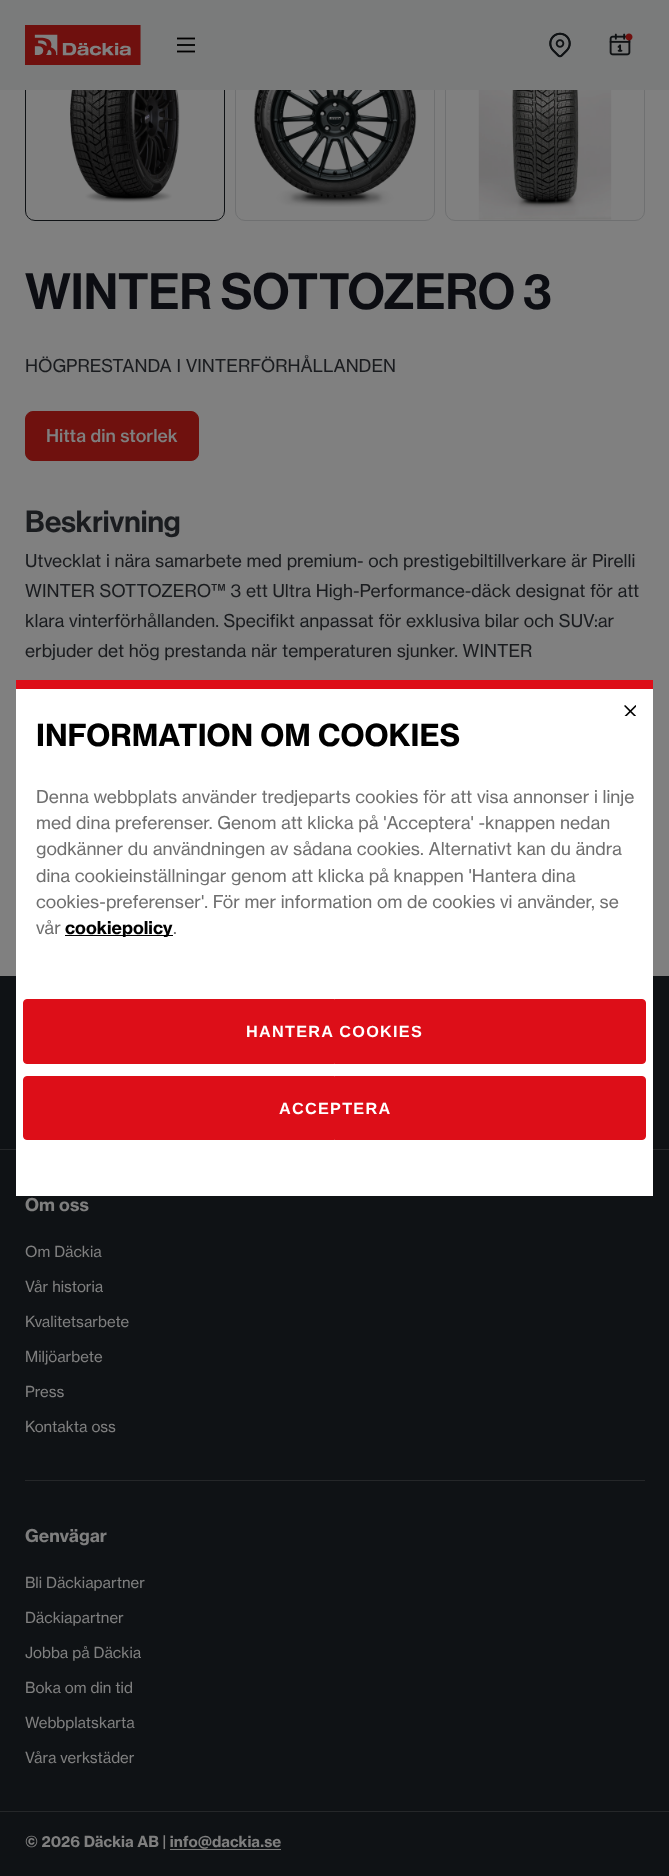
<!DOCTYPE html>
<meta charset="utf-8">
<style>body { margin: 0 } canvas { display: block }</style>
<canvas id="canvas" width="669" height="1876"></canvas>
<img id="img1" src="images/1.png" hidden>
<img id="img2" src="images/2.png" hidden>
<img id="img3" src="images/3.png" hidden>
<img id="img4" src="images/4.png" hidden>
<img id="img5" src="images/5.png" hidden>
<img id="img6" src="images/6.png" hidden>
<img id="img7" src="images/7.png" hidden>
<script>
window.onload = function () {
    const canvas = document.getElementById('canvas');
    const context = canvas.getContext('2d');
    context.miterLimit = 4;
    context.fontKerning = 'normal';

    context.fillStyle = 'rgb(128, 128, 128)';
    context.fillRect(0, 0, 669, 1876);
    context.beginPath();
    context.roundRect(25.5, 21.5, 199, 199, 9.5);
    context.strokeStyle = 'rgb(15, 18, 21)';
    context.stroke();
    context.beginPath();
    context.roundRect(235.5, 21.5, 199, 199, 9.5);
    context.strokeStyle = 'rgb(111, 112, 113)';
    context.stroke();
    context.beginPath();
    context.roundRect(445.5, 21.5, 199, 199, 9.5);
    context.stroke();
    context.fillStyle = 'rgb(122, 123, 123)';
    context.fillRect(0, 0, 669, 90);
    context.drawImage(document.getElementById('img1'), 25, 25, 116, 40);
    context.beginPath();
    context.moveTo(177, 38.5);
    context.lineTo(195, 38.5);
    context.strokeStyle = 'rgb(0, 0, 0)';
    context.lineWidth = 1.8;
    context.stroke();
    context.fillStyle = 'rgb(12, 13, 13)';
    context.fillRect(177, 44, 18, 2);
    context.beginPath();
    context.moveTo(177, 51.5);
    context.lineTo(195, 51.5);
    context.stroke();
    context.drawImage(document.getElementById('img2'), 549, 32, 22, 26);
    context.drawImage(document.getElementById('img3'), 609, 33, 24, 23);
    context.drawImage(document.getElementById('img4'), 70, 90, 110, 113);
    context.drawImage(document.getElementById('img5'), 254, 90, 163, 117);
    context.drawImage(document.getElementById('img6'), 478, 90, 134, 130);
    context.fillStyle = 'rgb(111, 17, 14)';
    context.beginPath();
    context.roundRect(25.5, 411.5, 173, 49, 7.5);
    context.fill();
    context.strokeStyle = 'rgb(111, 17, 14)';
    context.lineWidth = 1;
    context.stroke();
    context.fillStyle = 'rgb(15, 18, 21)';
    context.fillRect(0, 976, 669, 900);
    context.fillStyle = 'rgb(37, 39, 41)';
    context.fillRect(0, 1149, 669, 1);
    context.fillRect(0, 1811, 669, 1);
    context.fillRect(25, 1480, 620, 1);
    context.fillStyle = 'rgb(127, 127, 127)';
    context.fillRect(170, 1849, 111, 1);
    context.fillStyle = 'rgb(255, 255, 255)';
    context.fillRect(16, 689, 637, 507);
    context.fillStyle = 'rgb(221, 14, 24)';
    context.fillRect(16, 680, 637, 9);
    context.drawImage(document.getElementById('img7'), 624, 705, 12, 11);
    context.fillStyle = 'rgb(0, 0, 0)';
    context.fillRect(65, 935, 108, 1);
    context.fillStyle = 'rgb(221, 14, 24)';
    context.beginPath();
    context.roundRect(23.5, 999.5, 622, 64, 3.5);
    context.fill();
    context.strokeStyle = 'rgb(221, 14, 24)';
    context.stroke();
    context.beginPath();
    context.roundRect(23.5, 1076.5, 622, 63, 3.5);
    context.fill();
    context.stroke();
    context.font = '500 50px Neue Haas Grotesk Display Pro';
    context.fillStyle = 'rgb(12, 13, 18)';
    context.fillText('WINTER SOTTOZERO 3', 25, 309);
    context.font = '17.5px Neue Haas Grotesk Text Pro';
    context.fillStyle = 'rgb(26, 28, 31)';
    context.fillText('HÖGPRESTANDA I VINTERFÖRHÅLLANDEN', 25, 372);
    context.font = '500 17.5px Neue Haas Grotesk Text Pro';
    context.fillStyle = 'rgb(127, 127, 127)';
    context.fillText('Hitta din storlek', 46, 442);
    context.font = '500 30px Neue Haas Grotesk Display Pro';
    context.fillStyle = 'rgb(26, 28, 31)';
    context.fillText('Beskrivning', 25, 532);
    context.font = '17.5px Neue Haas Grotesk Text Pro';
    context.fillText('Utvecklat i nära samarbete med premium- och prestigebiltillverkare är Pirelli', 25, 567);
    context.fillText('WINTER SOTTOZERO™ 3 ett Ultra High-Performance-däck designat för att', 25, 597);
    context.fillText('klara vinterförhållanden. Specifikt anpassat för exklusiva bilar och SUV:ar', 25, 627);
    context.fillText('erbjuder det hög prestanda när temperaturen sjunker. WINTER', 25, 657);
    context.font = 'bold 17.5px Neue Haas Grotesk Text Pro';
    context.fillStyle = 'rgb(127, 127, 127)';
    context.fillText('Om oss', 25, 1211);
    context.font = '15px Neue Haas Grotesk Text Pro';
    context.fillText('Om Däckia', 25, 1257);
    context.fillText('Vår historia', 25, 1292);
    context.fillText('Kvalitetsarbete', 25, 1327);
    context.fillText('Miljöarbete', 25, 1362);
    context.fillText('Press', 25, 1397);
    context.fillText('Kontakta oss', 25, 1432);
    context.font = 'bold 17.5px Neue Haas Grotesk Text Pro';
    context.fillText('Genvägar', 25, 1542);
    context.font = '15px Neue Haas Grotesk Text Pro';
    context.fillText('Bli Däckiapartner', 25, 1588);
    context.fillText('Däckiapartner', 25, 1623);
    context.fillText('Jobba på Däckia', 25, 1658);
    context.fillText('Boka om din tid', 25, 1693);
    context.fillText('Webbplatskarta', 25, 1728);
    context.fillText('Våra verkstäder', 25, 1763);
    context.font = 'bold 15px Neue Haas Grotesk Text Pro';
    context.fillText('© 2026 Däckia AB | info@dackia.se', 25, 1847);
    context.font = 'bold 30px Neue Haas Grotesk Text Pro';
    context.fillStyle = 'rgb(0, 0, 0)';
    context.fillText('INFORMATION OM COOKIES', 36, 746);
    context.font = '17.5px Neue Haas Grotesk Text Pro';
    context.fillStyle = 'rgb(112, 112, 112)';
    context.fillText('Denna webbplats använder tredjeparts cookies för att visa annonser i linje', 36, 803);
    context.fillText('med dina preferenser. Genom att klicka på \'Acceptera\' -knappen nedan', 36, 829);
    context.fillText('godkänner du användningen av sådana cookies. Alternativt kan du ändra', 36, 855);
    context.fillText('dina cookieinställningar genom att klicka på knappen \'Hantera dina', 36, 882);
    context.fillText('cookies-preferenser\'. För mer information om de cookies vi använder, se', 36, 908);
    context.fillText('vår', 36, 934);
    context.font = 'bold 17.5px Neue Haas Grotesk Text Pro';
    context.fillStyle = 'rgb(0, 0, 0)';
    context.fillText('cookiepolicy', 65, 934);
    context.font = '17.5px Neue Haas Grotesk Text Pro';
    context.fillStyle = 'rgb(112, 112, 112)';
    context.fillText('.', 173, 934);
    context.letterSpacing = '1.25px';
    context.font = 'bold 16.25px Liberation Sans';
    context.fillStyle = 'rgb(255, 255, 255)';
    context.fillText('HANTERA COOKIES', 246, 1037);
    context.fillText('ACCEPTERA', 279, 1114);
};
</script>
